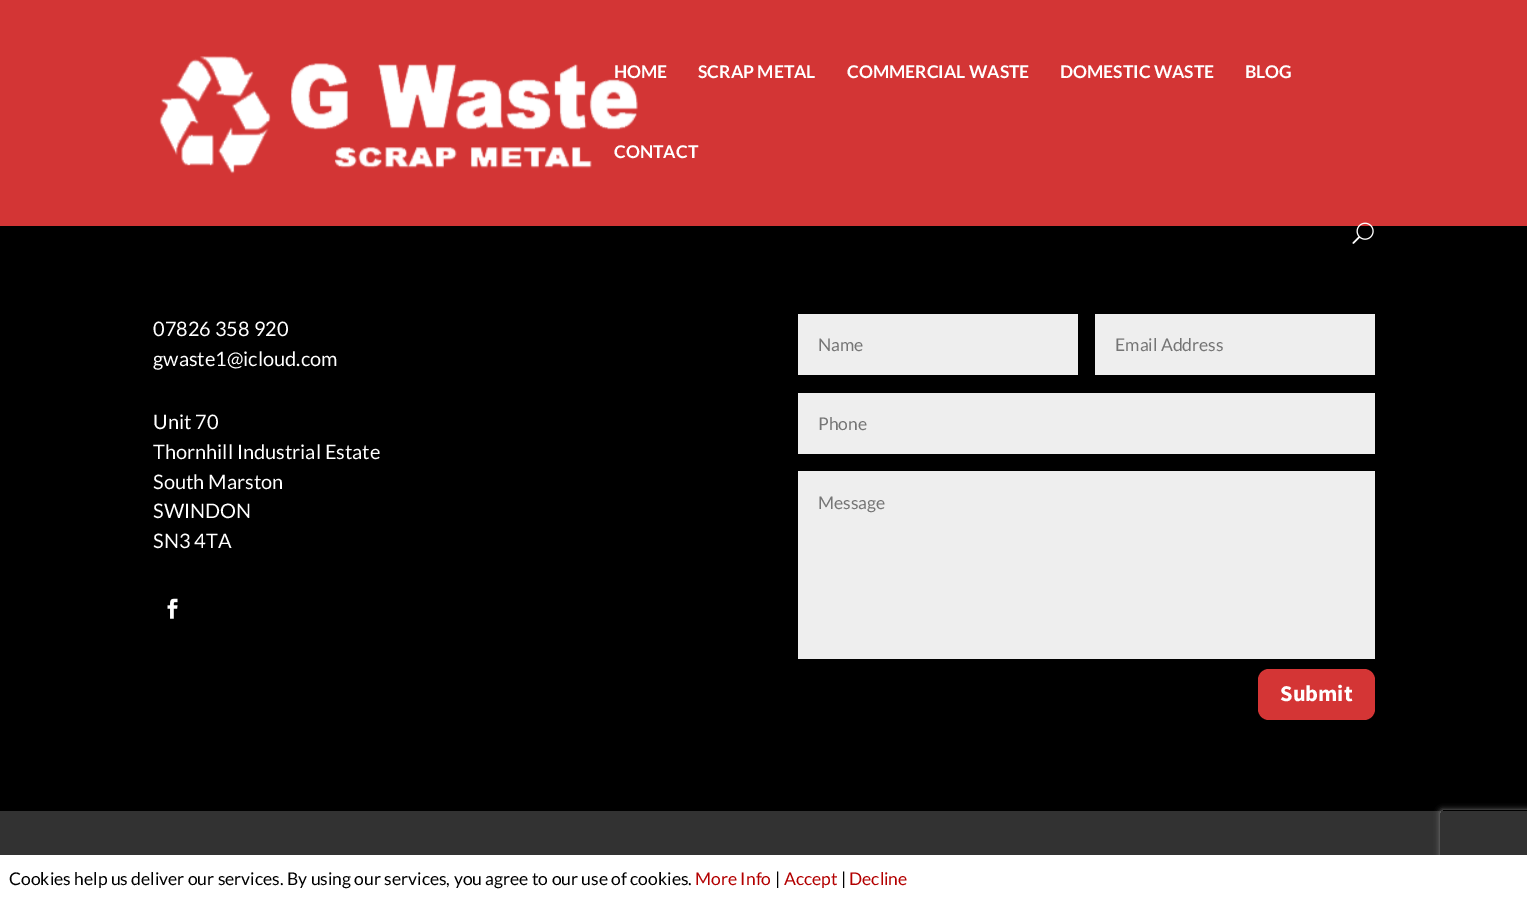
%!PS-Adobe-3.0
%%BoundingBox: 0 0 1527 902
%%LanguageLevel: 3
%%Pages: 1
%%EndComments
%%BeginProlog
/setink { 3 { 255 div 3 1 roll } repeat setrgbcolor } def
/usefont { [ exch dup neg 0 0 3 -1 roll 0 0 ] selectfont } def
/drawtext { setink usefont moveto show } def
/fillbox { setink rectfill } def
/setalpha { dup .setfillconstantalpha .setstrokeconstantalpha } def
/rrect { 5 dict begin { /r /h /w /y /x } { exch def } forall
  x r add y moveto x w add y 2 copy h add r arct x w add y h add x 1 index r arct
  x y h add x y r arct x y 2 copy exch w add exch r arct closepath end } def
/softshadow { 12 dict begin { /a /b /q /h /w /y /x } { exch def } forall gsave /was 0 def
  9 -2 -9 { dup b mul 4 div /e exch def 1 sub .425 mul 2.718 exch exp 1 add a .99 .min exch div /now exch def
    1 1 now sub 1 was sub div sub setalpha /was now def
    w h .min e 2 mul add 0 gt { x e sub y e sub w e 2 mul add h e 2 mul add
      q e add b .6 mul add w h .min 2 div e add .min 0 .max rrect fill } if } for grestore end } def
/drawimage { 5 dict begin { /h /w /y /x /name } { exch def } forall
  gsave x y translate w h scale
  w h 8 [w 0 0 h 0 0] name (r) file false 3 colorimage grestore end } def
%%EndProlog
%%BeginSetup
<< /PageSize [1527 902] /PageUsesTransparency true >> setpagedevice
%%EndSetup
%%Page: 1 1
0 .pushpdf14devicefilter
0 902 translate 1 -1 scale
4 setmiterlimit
0 0 1527 902 0 0 0 fillbox
0 0 1527 226 211 53 53 fillbox
(assets/img1.rgb) 159 56 479 118 drawimage
(HOME) 614 78 /Lato-Bold 17.5 255 255 255 drawtext
(SCRAP METAL) 698 78 /Lato-Bold 17.5 255 255 255 drawtext
(COMMERCIAL WASTE) 847 78 /Lato-Bold 17.5 255 255 255 drawtext
(DOMESTIC WASTE) 1060 78 /Lato-Bold 17.5 255 255 255 drawtext
(BLOG) 1245 78 /Lato-Bold 17.5 255 255 255 drawtext
(CONTACT) 614 158 /Lato-Bold 17.5 255 255 255 drawtext
(assets/img2.rgb) 1352 222 22 22 drawimage
(07826 358 920) 153 336 /Lato-Regular 20 255 255 255 drawtext
(gwaste1@icloud.com) 153 366 /Lato-Regular 20 255 255 255 drawtext
(Unit 70) 153 429 /Lato-Regular 20 255 255 255 drawtext
(Thornhill Industrial Estate) 153 459 /Lato-Regular 20 255 255 255 drawtext
(South Marston) 153 489 /Lato-Regular 20 255 255 255 drawtext
(SWINDON) 153 518 /Lato-Regular 20 255 255 255 drawtext
(SN3 4TA) 153 548 /Lato-Regular 20 255 255 255 drawtext
(assets/img3.rgb) 167 598 11 21 drawimage
798 314 280 61 238 238 238 fillbox
(Name) 818 351 /Lato-Regular 17.5 117 117 117 drawtext
1095 314 280 61 238 238 238 fillbox
(Email Address) 1115 351 /Lato-Regular 17.5 117 117 117 drawtext
798 393 577 61 238 238 238 fillbox
(Phone) 818 430 /Lato-Regular 17.5 117 117 117 drawtext
798 471 577 188 238 238 238 fillbox
(Message) 818 509 /Lato-Regular 17.5 117 117 117 drawtext
212 53 53 setink
1258 669 117 51 11 rrect fill
(Submit) 1280 701 /SourceSansPro-Bold 22.5 255 255 255 drawtext
0 811 1527 44 50 50 50 fillbox
gsave
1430 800 moveto 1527 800 lineto 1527 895 lineto 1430 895 lineto closepath 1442.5 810 moveto 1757.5 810 lineto 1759 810 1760 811 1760 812.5 curveto 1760 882.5 lineto 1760 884 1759 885 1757.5 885 curveto 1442.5 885 lineto 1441 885 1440 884 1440 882.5 curveto 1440 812.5 lineto 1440 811 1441 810 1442.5 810 curveto closepath eoclip newpath
128 128 128 setink
1440 810 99 75 2.5 3 1 softshadow
grestore
0 855 1527 47 255 255 255 fillbox
(Cookies help us deliver our services. By using our services, you agree to our use of cookies.) 9 885 /Lato-Regular 17.5 0 0 0 drawtext
(More Info) 695 885 /Lato-Regular 17.5 179 0 0 drawtext
(|) 775 885 /Lato-Regular 17.5 0 0 0 drawtext
(Accept) 784 885 /Lato-Regular 17.5 179 0 0 drawtext
(|) 841 885 /Lato-Regular 17.5 0 0 0 drawtext
(Decline) 849 885 /Lato-Regular 17.5 179 0 0 drawtext
.poppdf14devicefilter showpage
%%EOF
